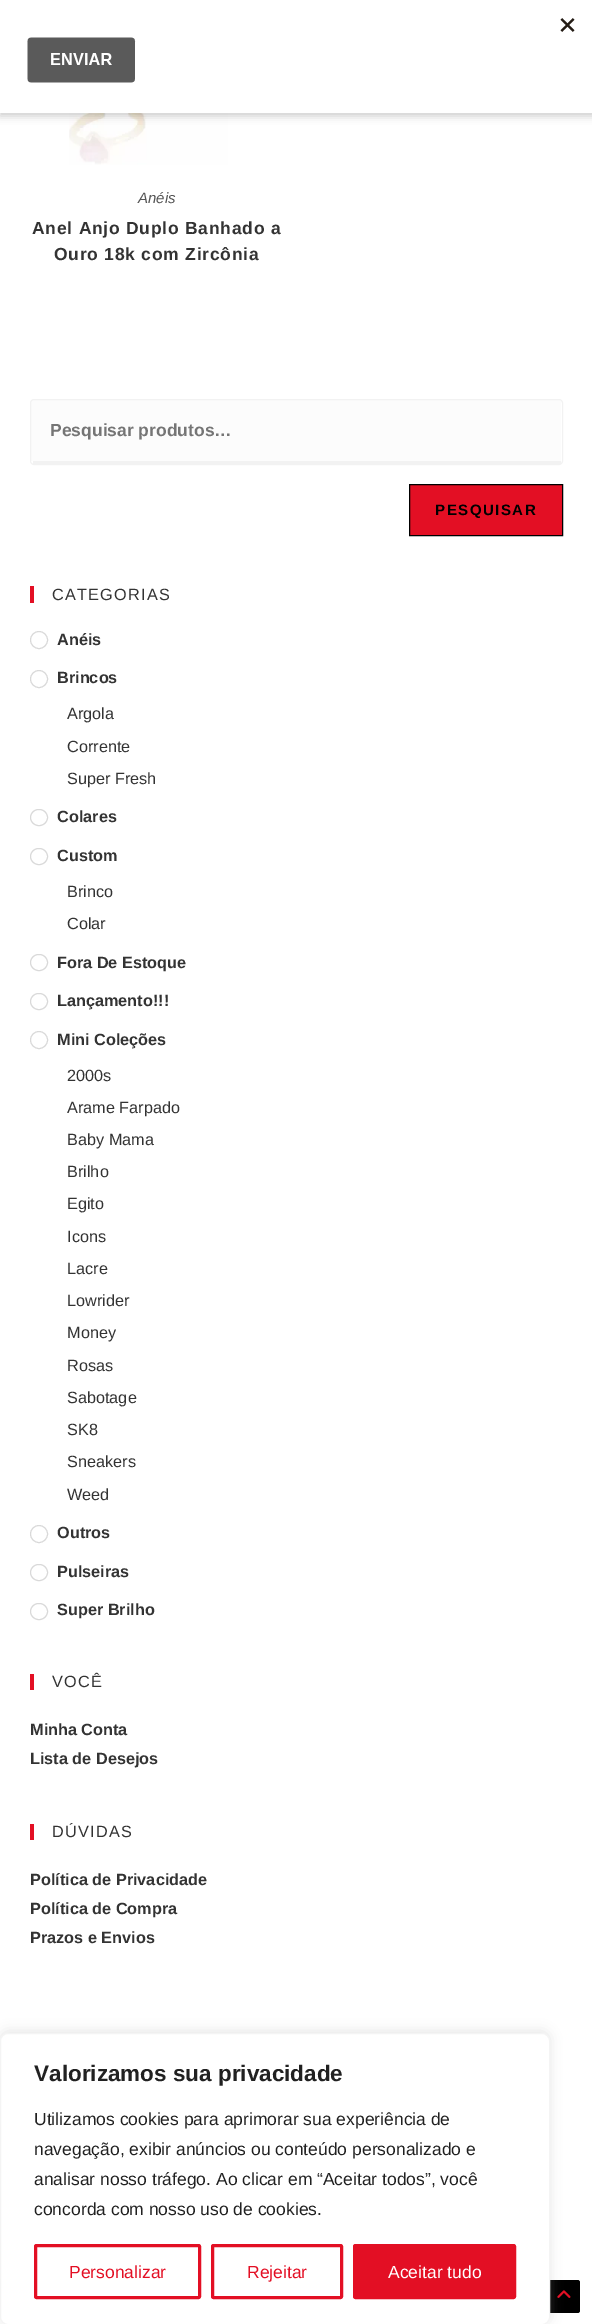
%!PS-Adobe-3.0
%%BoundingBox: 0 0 592 2324
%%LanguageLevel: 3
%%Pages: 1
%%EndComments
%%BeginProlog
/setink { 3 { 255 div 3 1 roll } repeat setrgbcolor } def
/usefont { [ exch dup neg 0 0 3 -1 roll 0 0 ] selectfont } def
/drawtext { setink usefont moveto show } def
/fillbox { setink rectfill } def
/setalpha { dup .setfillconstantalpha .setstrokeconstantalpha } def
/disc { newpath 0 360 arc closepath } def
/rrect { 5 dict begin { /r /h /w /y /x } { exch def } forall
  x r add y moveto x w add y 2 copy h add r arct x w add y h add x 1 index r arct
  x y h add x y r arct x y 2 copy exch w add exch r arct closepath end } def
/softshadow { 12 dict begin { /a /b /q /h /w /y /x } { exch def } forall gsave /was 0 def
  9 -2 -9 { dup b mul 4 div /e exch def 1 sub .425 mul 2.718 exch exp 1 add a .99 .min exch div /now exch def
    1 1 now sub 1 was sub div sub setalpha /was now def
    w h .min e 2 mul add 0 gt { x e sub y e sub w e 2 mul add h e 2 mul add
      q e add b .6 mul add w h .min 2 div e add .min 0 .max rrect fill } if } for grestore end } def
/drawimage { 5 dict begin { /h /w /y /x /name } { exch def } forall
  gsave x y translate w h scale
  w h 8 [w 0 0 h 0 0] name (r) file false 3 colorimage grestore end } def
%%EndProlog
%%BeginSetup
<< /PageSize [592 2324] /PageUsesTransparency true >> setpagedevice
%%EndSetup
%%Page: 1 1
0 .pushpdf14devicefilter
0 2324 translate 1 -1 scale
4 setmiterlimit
0 0 592 2324 255 255 255 fillbox
(assets/img2.rgb) 69 113 159 52 drawimage
0 0 0 setink
0 4 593 112 0 4 0.2 softshadow
0 0 592 113 255 255 255 fillbox
(assets/img1.rgb) 27 18 548 65 drawimage
(Anéis) 138 203 /LiberationSans-Italic 15 84 84 84 drawtext
/LiberationSans-Bold 17.5 usefont
51 51 51 setink
32 234 moveto 0.75 0 (Anel Anjo Duplo Banhado a) ashow
54 260 moveto 0.75 0 (Ouro 18k com Zircônia) ashow
252 252 252 setink
34 400 moveto 559 400 lineto 560 400 561 401 561 402 curveto 561 461 lineto 31 461 lineto 31 402 lineto 31 401 32 400 34 400 curveto closepath fill
242 242 242 setink
30.5 399.5 532 65 3.5 rrect stroke
33 461 528 3 242 242 242 fillbox
(Pesquisar produtos…) 50 436 /LiberationSans-Bold 17.5 117 117 117 drawtext
227 15 36 setink
409.5 484.5 moveto 562.5 484.5 lineto 562.5 535.5 lineto 409.5 535.5 lineto closepath gsave fill grestore
0 0 0 setink
stroke
/LiberationSans-Bold 15 usefont
435 515 moveto 1.5 0 (PESQUISAR) ashow
30 586 4 17 227 15 36 fillbox
/LiberationSans-Regular 16.25 usefont
51 51 51 setink
52 600 moveto 1.25 0 (CATEGORIAS) ashow
217 217 217 setink
39 640 8.5 disc stroke
(Anéis) 57 645 /LiberationSans-Bold 16.25 51 51 51 drawtext
217 217 217 setink
39 679 8.5 disc stroke
(Brincos) 57 683 /LiberationSans-Bold 16.25 51 51 51 drawtext
(Argola) 67 719 /LiberationSans-Regular 16.25 51 51 51 drawtext
(Corrente) 67 752 /LiberationSans-Regular 16.25 51 51 51 drawtext
(Super Fresh) 67 784 /LiberationSans-Regular 16.25 51 51 51 drawtext
217 217 217 setink
30.5 809.5 17 16 8 rrect stroke
(Colares) 57 822 /LiberationSans-Bold 16.25 51 51 51 drawtext
217 217 217 setink
30.5 848.5 17 16 8 rrect stroke
(Custom) 57 861 /LiberationSans-Bold 16.25 51 51 51 drawtext
(Brinco) 67 897 /LiberationSans-Regular 16.25 51 51 51 drawtext
(Colar) 67 929 /LiberationSans-Regular 16.25 51 51 51 drawtext
217 217 217 setink
30.5 954.5 17 16 8 rrect stroke
(Fora De Estoque) 57 968 /LiberationSans-Bold 16.25 51 51 51 drawtext
217 217 217 setink
30.5 993.5 17 16 8 rrect stroke
(Lançamento!!!) 57 1006 /LiberationSans-Bold 16.25 51 51 51 drawtext
217 217 217 setink
39 1040 8.5 disc stroke
(Mini Coleções) 57 1045 /LiberationSans-Bold 16.25 51 51 51 drawtext
(2000s) 67 1081 /LiberationSans-Regular 16.25 51 51 51 drawtext
(Arame Farpado) 67 1113 /LiberationSans-Regular 16.25 51 51 51 drawtext
(Baby Mama) 67 1145 /LiberationSans-Regular 16.25 51 51 51 drawtext
(Brilho) 67 1177 /LiberationSans-Regular 16.25 51 51 51 drawtext
(Egito) 67 1209 /LiberationSans-Regular 16.25 51 51 51 drawtext
(Icons) 67 1242 /LiberationSans-Regular 16.25 51 51 51 drawtext
(Lacre) 67 1274 /LiberationSans-Regular 16.25 51 51 51 drawtext
(Lowrider) 67 1306 /LiberationSans-Regular 16.25 51 51 51 drawtext
(Money) 67 1338 /LiberationSans-Regular 16.25 51 51 51 drawtext
(Rosas) 67 1371 /LiberationSans-Regular 16.25 51 51 51 drawtext
(Sabotage) 67 1403 /LiberationSans-Regular 16.25 51 51 51 drawtext
(SK8) 67 1435 /LiberationSans-Regular 16.25 51 51 51 drawtext
(Sneakers) 67 1467 /LiberationSans-Regular 16.25 51 51 51 drawtext
(Weed) 67 1500 /LiberationSans-Regular 16.25 51 51 51 drawtext
217 217 217 setink
39 1534 8.5 disc stroke
(Outros) 57 1538 /LiberationSans-Bold 16.25 51 51 51 drawtext
217 217 217 setink
30.5 1564.5 17 16 8 rrect stroke
(Pulseiras) 57 1577 /LiberationSans-Bold 16.25 51 51 51 drawtext
217 217 217 setink
30.5 1603.5 17 16 8 rrect stroke
(Super Brilho) 57 1615 /LiberationSans-Bold 16.25 51 51 51 drawtext
30 1674 4 16 227 15 36 fillbox
/LiberationSans-Regular 16.25 usefont
51 51 51 setink
52 1687 moveto 1.25 0 (VOCÊ) ashow
(Minha Conta) 30 1735 /LiberationSans-Bold 16.25 51 51 51 drawtext
(Lista de Desejos) 30 1764 /LiberationSans-Bold 16.25 51 51 51 drawtext
30 1824 4 16 227 15 36 fillbox
/LiberationSans-Regular 16.25 usefont
51 51 51 setink
52 1837 moveto 1.25 0 (DÚVIDAS) ashow
(Política de Privacidade) 30 1885 /LiberationSans-Bold 16.25 51 51 51 drawtext
(Política de Compra) 30 1914 /LiberationSans-Bold 16.25 51 51 51 drawtext
(Prazos e Envios) 30 1943 /LiberationSans-Bold 16.25 51 51 51 drawtext
0 0 0 setink
548 2280 32 33 2.5 rrect fill
(assets/img3.rgb) 557 2290 14 8 drawimage
172 171 171 setink
0 2031 550 293 8 6 0.3 softshadow
255 255 255 setink
0.5 2033.5 549 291 7.5 rrect gsave fill grestore
244 244 244 setink
stroke
(Valorizamos sua privacidade) 34 2081 /LiberationSans-Bold 22.5 33 33 33 drawtext
(Utilizamos cookies para aprimorar sua experiência de) 34 2125 /LiberationSans-Regular 17.5 33 33 33 drawtext
(navegação, exibir anúncios ou conteúdo personalizado e) 34 2155 /LiberationSans-Regular 17.5 33 33 33 drawtext
(analisar nosso tráfego. Ao clicar em “Aceitar todos”, você) 34 2185 /LiberationSans-Regular 17.5 33 33 33 drawtext
(concorda com nosso uso de cookies.) 34 2215 /LiberationSans-Regular 17.5 33 33 33 drawtext
227 15 36 setink
3 setlinewidth
35.5 2245.5 164 52 1 rrect stroke
(Personalizar) 69 2278 /LiberationSans-Regular 17.5 227 15 36 drawtext
212.5 2245.5 129 52 1 rrect stroke
(Rejeitar) 247 2278 /LiberationSans-Regular 17.5 227 15 36 drawtext
354.5 2245.5 160 52 1 rrect gsave fill grestore
stroke
(Aceitar tudo) 388 2278 /LiberationSans-Regular 17.5 255 255 255 drawtext
.poppdf14devicefilter showpage
%%EOF
